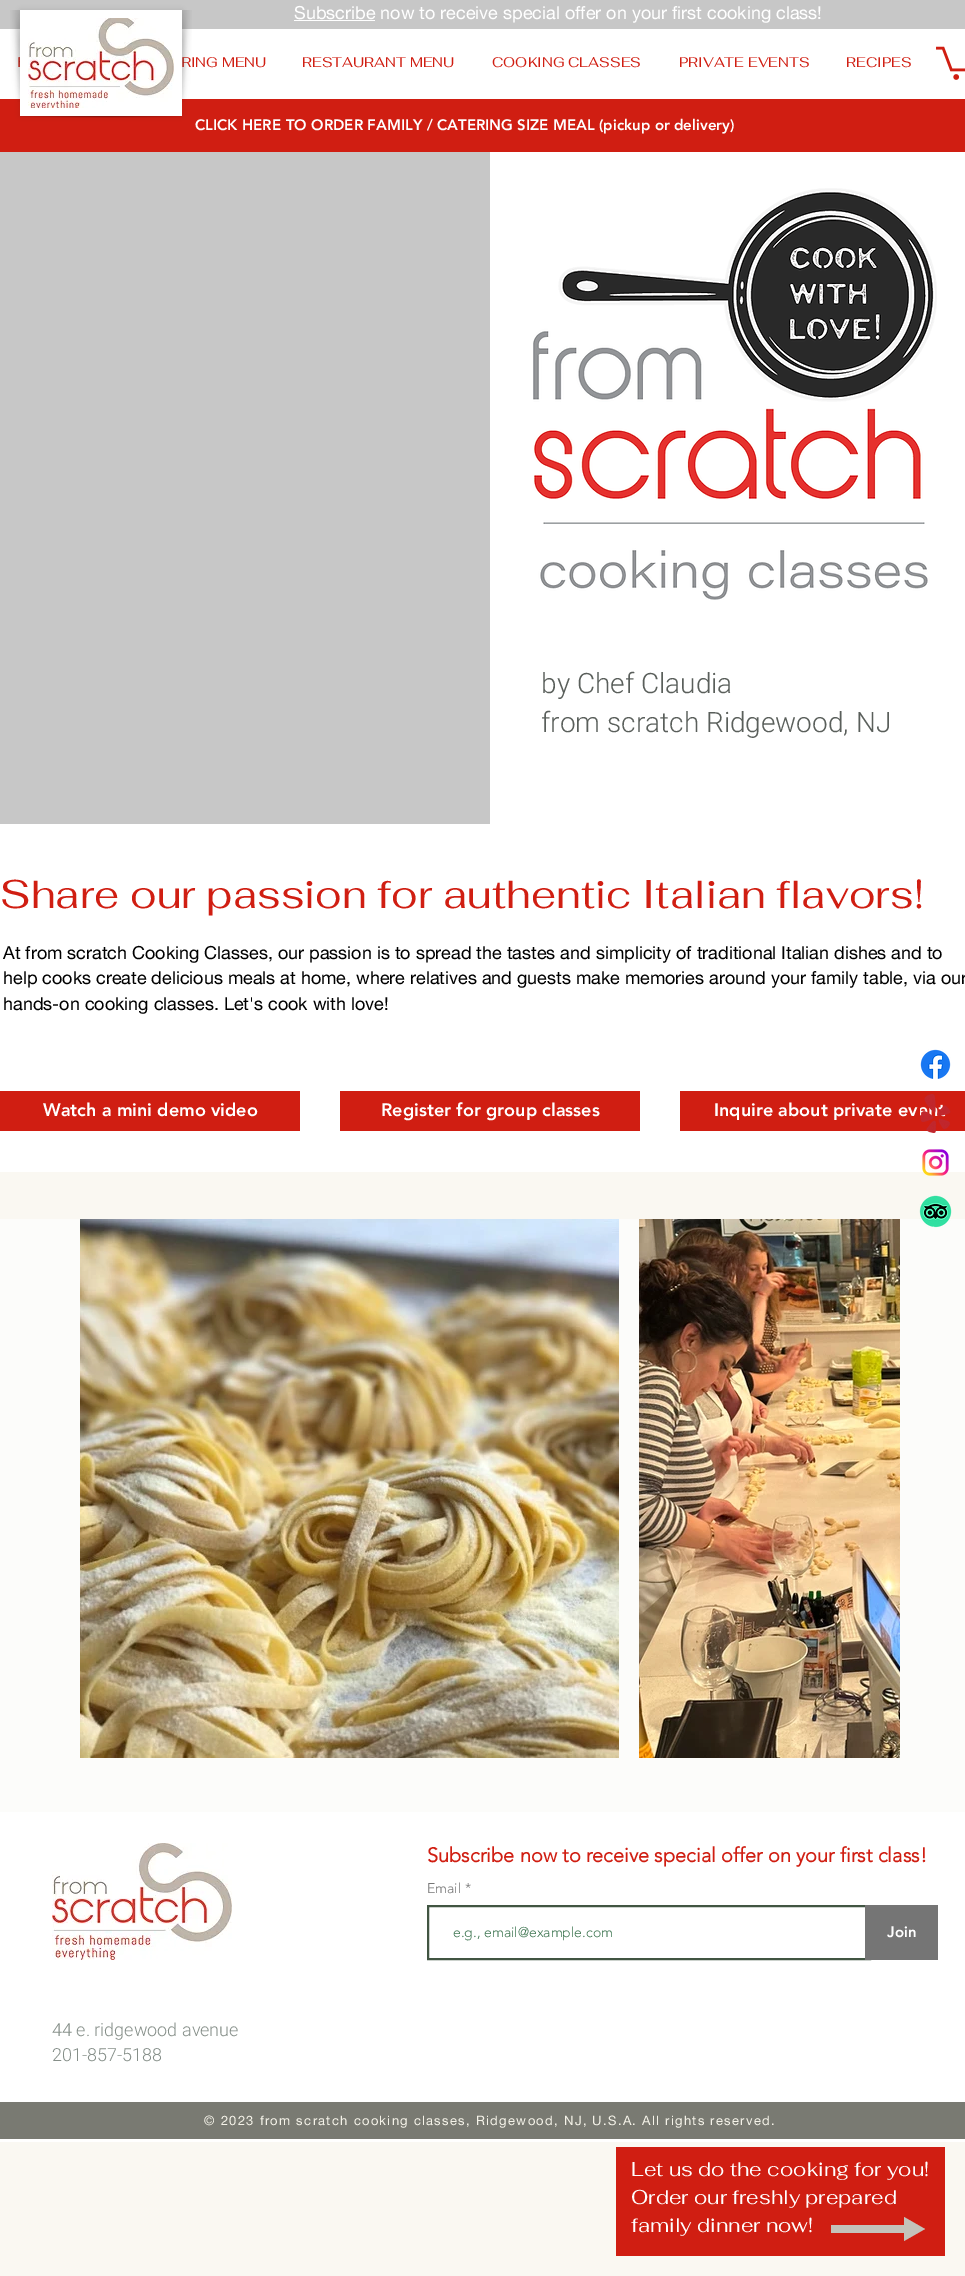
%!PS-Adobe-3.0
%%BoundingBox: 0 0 965 2276
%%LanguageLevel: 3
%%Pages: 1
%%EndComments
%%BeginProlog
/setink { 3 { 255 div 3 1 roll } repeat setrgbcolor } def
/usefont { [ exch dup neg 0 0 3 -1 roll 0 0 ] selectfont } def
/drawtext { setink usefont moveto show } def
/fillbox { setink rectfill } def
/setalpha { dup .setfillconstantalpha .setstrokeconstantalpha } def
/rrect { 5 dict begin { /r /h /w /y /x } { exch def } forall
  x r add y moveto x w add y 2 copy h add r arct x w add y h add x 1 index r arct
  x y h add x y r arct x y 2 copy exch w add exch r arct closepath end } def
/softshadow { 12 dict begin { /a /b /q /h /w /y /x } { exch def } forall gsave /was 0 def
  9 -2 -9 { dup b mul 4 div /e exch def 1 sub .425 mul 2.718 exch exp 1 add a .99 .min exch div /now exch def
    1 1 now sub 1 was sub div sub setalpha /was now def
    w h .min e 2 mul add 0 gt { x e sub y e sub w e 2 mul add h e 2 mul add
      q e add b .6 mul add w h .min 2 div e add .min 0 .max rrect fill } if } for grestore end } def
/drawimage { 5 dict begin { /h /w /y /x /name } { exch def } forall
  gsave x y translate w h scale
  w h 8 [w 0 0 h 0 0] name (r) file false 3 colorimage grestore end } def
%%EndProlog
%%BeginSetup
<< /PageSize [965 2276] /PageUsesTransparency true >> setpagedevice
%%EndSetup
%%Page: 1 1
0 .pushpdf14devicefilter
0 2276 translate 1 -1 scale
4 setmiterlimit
0 0 965 2276 250 248 242 fillbox
0 0 965 29 199 199 199 fillbox
0 99 965 53 208 30 18 fillbox
0 29 965 70 255 255 255 fillbox
0 0 0 setink
20 10 162 106 0 2.5 0.1 softshadow
20 10 162 106 255 255 255 fillbox
(assets/img1.rgb) 28 18 146 90 drawimage
(assets/img2.rgb) 20 116 162 2 drawimage
(assets/img3.rgb) 10 10 10 92 drawimage
(RING MENU) 181 67 /Fahkwang-Regular 14 208 30 18 drawtext
(assets/img4.rgb) 182 10 10 92 drawimage
294 20 81 1 255 255 255 fillbox
(Subscribe now to receive special offer on your first cooking class!) 294 19 /helveticaneue-Regular 18 255 255 255 drawtext
(RESTAURANT MENU) 302 67 /Fahkwang-Regular 14 208 30 18 drawtext
(COOKING CLASSES) 492 67 /Fahkwang-Regular 14 208 30 18 drawtext
(PRIVATE EVENTS) 679 67 /Fahkwang-Regular 14 208 30 18 drawtext
(RECIPES) 846 67 /Fahkwang-Regular 14 208 30 18 drawtext
(assets/img5.rgb) 936 46 29 34 drawimage
(CLICK HERE TO ORDER FAMILY / CATERING SIZE MEAL \(pickup or delivery\)) 195 130 /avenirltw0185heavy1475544-Black 15 255 255 255 drawtext
0 152 490 672 199 199 199 fillbox
490 152 475 672 255 255 255 fillbox
(assets/img6.rgb) 533 188 404 412 drawimage
(by Chef Claudia) 541 693 /Heebo-Light 28 90 95 91 drawtext
(from scratch Ridgewood, NJ) 541 732 /Heebo-Light 28 90 95 91 drawtext
0 824 965 348 255 255 255 fillbox
(Share our passion for authentic Italian flavors!) 0 908 /Fahkwang-Regular 40 208 30 18 drawtext
(At from scratch Cooking Classes, our passion is to spread the tastes and simplicity of traditional Italian dishes and to) 3 959 /helveticaneue-Regular 18 0 0 0 drawtext
(help cooks create delicious meals at home, where relatives and guests make memories around your family table, via our) 3 984 /helveticaneue-Regular 18 0 0 0 drawtext
(hands-on cooking classes. Let's cook with love!) 3 1010 /helveticaneue-Regular 18 0 0 0 drawtext
0 1091 300 40 208 30 18 fillbox
(Watch a mini demo video) 43 1116 /avenirltw0185heavy1475544-Black 18 255 255 255 drawtext
340 1091 300 40 208 30 18 fillbox
(Register for group classes) 381 1116 /avenirltw0185heavy1475544-Black 18 255 255 255 drawtext
680 1091 285 40 208 30 18 fillbox
(Inquire about private ev) 714 1116 /avenirltw0185heavy1475544-Black 18 255 255 255 drawtext
0 1219 965 593 252 252 250 fillbox
(assets/img7.rgb) 80 1219 539 539 drawimage
(assets/img8.rgb) 639 1219 261 539 drawimage
616 2147 329 109 208 30 18 fillbox
(Let us do the cooking for you!) 631 2176 /Fahkwang-Regular 20 255 255 255 drawtext
(Order our freshly prepared) 631 2204 /Fahkwang-Regular 20 255 255 255 drawtext
(family dinner now!) 631 2232 /Fahkwang-Regular 20 255 255 255 drawtext
196 194 186 setink
831 2233 moveto 904 2233 lineto 904 2241 lineto 925 2229 lineto 904 2217 lineto 904 2225 lineto 831 2225 lineto closepath fill
(assets/img9.rgb) 920 1049 31 30 drawimage
(assets/img10.rgb) 920 1094 31 39 drawimage
(assets/img11.rgb) 922 1149 27 27 drawimage
(assets/img12.rgb) 919 1195 33 33 drawimage
0 1812 965 330 255 255 255 fillbox
(assets/img13.rgb) 52 1843 180 117 drawimage
(Subscribe now to receive special offer on your first class!) 427 1862 /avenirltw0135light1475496-Bold 20 208 30 18 drawtext
(Email *) 427 1893 /avenirltw0135light1475496-Light 14 117 117 117 drawtext
65 85 66 setink
2 setlinewidth
428 1906 442 53 rectstroke
(e.g., email@example.com) 453 1937 /avenirltw0135light1475496-Light 14 63 118 82 drawtext
865 1905 73 55 117 117 117 fillbox
(Join) 887 1937 /avenirltw0185heavy1475544-Black 15 255 255 255 drawtext
(44 e. ridgewood avenue) 52 2036 /Heebo-Light 18 134 143 137 drawtext
(201-857-5188) 52 2061 /Heebo-Light 18 134 143 137 drawtext
0 2102 965 37 121 122 114 fillbox
/helveticaneue-Regular 13 usefont
245 243 233 setink
204 2125 moveto 1.3 0 (© 2023 from scratch cooking classes, Ridgewood, NJ, U.S.A. All rights reserved.) ashow
.poppdf14devicefilter showpage
%%EOF
